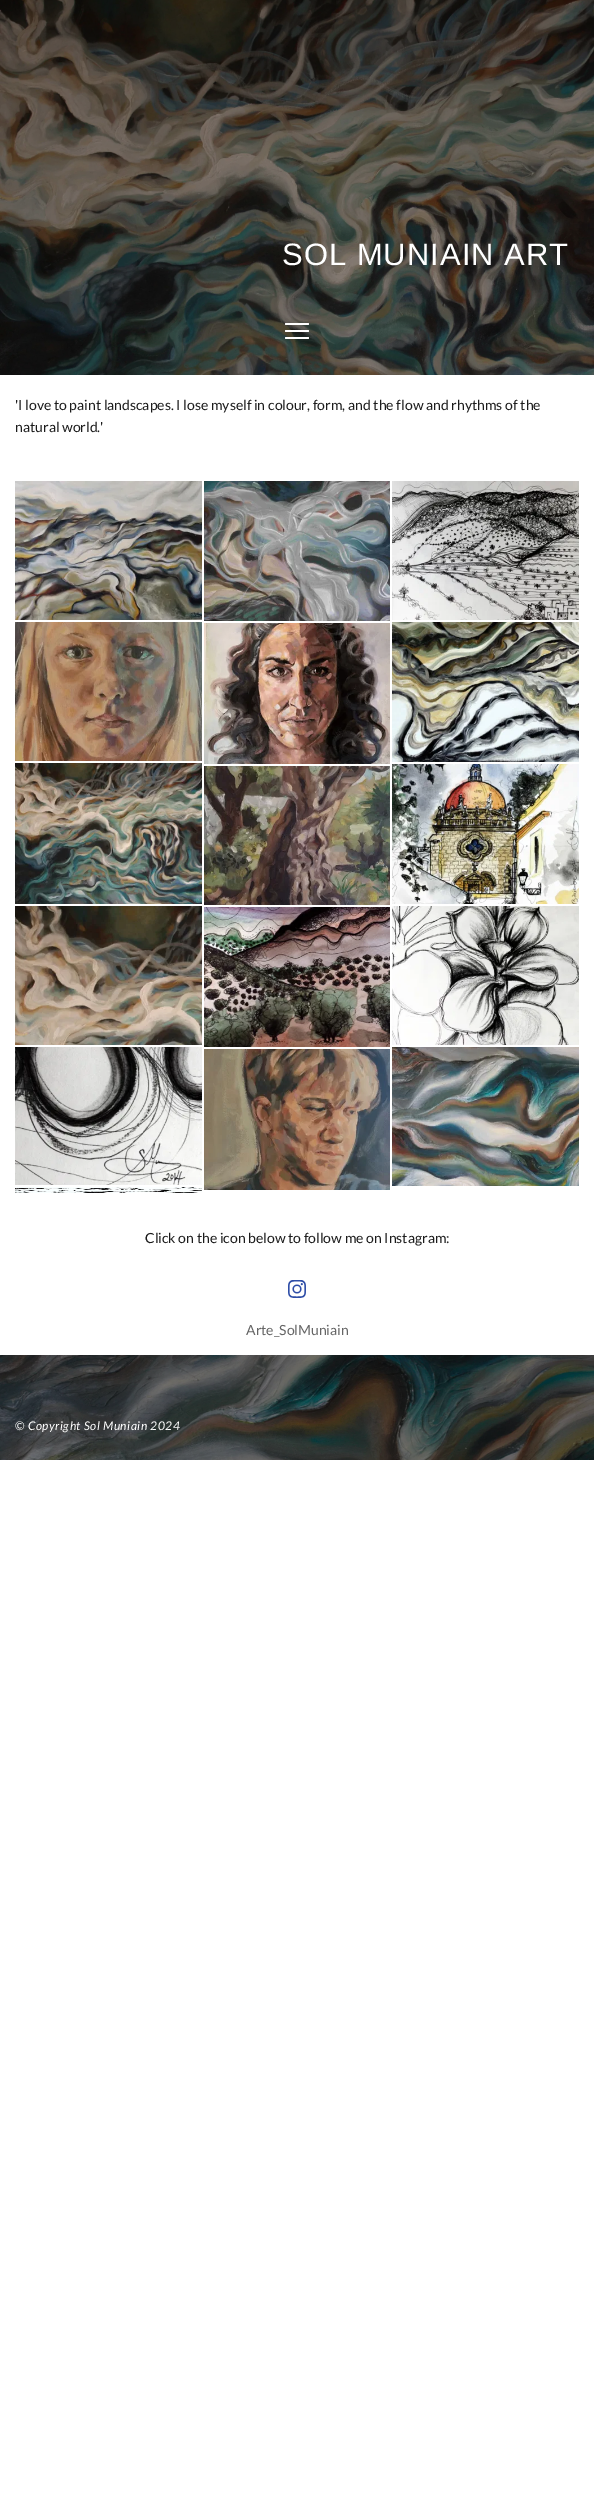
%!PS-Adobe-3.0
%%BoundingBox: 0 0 594 2507
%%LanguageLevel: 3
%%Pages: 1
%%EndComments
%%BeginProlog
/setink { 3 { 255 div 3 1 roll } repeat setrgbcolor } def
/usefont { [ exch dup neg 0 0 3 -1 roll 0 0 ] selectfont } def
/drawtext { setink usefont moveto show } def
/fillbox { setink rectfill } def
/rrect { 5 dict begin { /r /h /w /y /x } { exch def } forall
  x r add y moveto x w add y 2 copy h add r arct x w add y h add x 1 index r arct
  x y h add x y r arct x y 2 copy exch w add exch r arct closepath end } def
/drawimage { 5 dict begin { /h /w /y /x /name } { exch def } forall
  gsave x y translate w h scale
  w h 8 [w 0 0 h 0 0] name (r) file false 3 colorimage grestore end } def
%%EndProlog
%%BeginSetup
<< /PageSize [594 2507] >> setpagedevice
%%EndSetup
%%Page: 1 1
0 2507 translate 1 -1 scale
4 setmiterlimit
0 0 594 2507 255 255 255 fillbox
(assets/img1.rgb) 0 0 594 375 drawimage
/LiberationSans-Regular 31 usefont
282 265 moveto 1 0 (SOL MUNIAIN ART) ashow
285 323 24 2 1 rrect fill
285 330 24 2 1 rrect fill
285 337 24 2 1 rrect fill
('I love to paint landscapes. I lose myself in colour, form, and the flow and rhythms of the) 15 410 /Lato-Regular 14 28 28 28 drawtext
(natural world.') 15 432 /Lato-Regular 14 28 28 28 drawtext
(assets/img2.rgb) 15 481 187 139 drawimage
(assets/img3.rgb) 204 481 186 140 drawimage
(assets/img4.rgb) 392 481 187 139 drawimage
(assets/img5.rgb) 15 622 187 139 drawimage
(assets/img6.rgb) 204 623 186 141 drawimage
(assets/img7.rgb) 392 622 187 140 drawimage
(assets/img8.rgb) 15 763 187 141 drawimage
(assets/img9.rgb) 204 766 186 139 drawimage
(assets/img10.rgb) 392 764 187 140 drawimage
(assets/img11.rgb) 15 906 187 139 drawimage
(assets/img12.rgb) 204 907 186 140 drawimage
(assets/img13.rgb) 392 906 187 139 drawimage
(assets/img14.rgb) 15 1047 187 138 drawimage
(assets/img15.rgb) 204 1049 186 141 drawimage
(assets/img16.rgb) 392 1047 187 139 drawimage
(assets/img17.rgb) 15 1187 187 6 drawimage
(Click on the icon below to follow me on Instagram:) 145 1243 /Lato-Regular 14 28 28 28 drawtext
(assets/img18.rgb) 288 1280 18 18 drawimage
(Arte_SolMuniain) 246 1335 /Lato-Regular 14 102 102 102 drawtext
(assets/img19.rgb) 0 1355 594 105 drawimage
/Lato-Regular 12 usefont
255 255 255 setink
15 1430 moveto 0.5 0 (©) ashow
/Lato-Italic 12 usefont
28 1430 moveto 0.5 0 (Copyright Sol Muniain 2024) ashow
showpage
%%EOF
